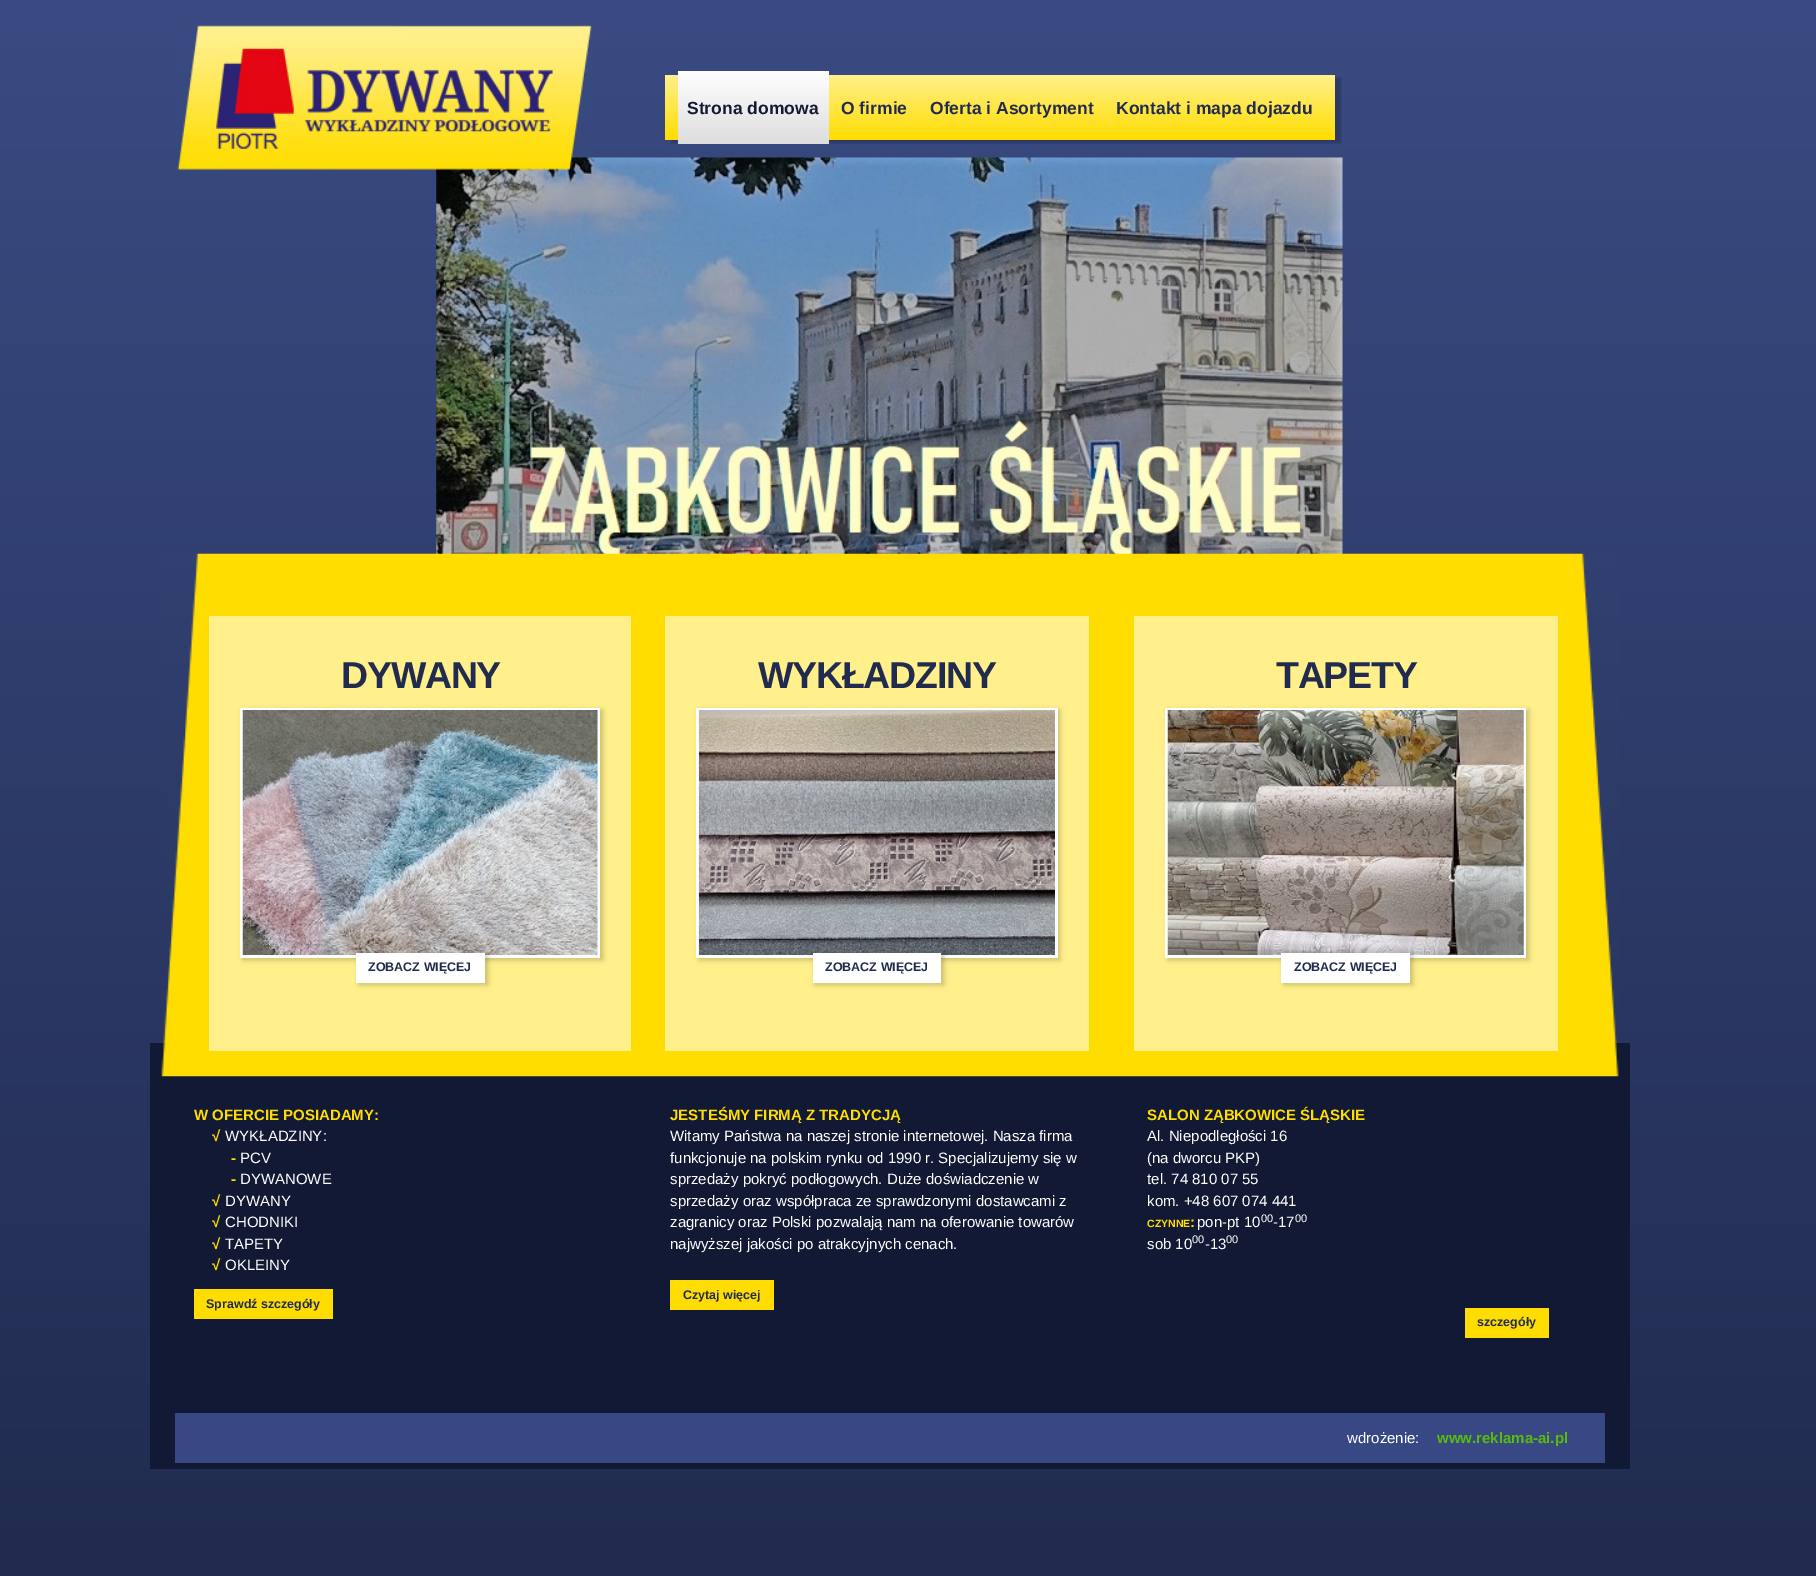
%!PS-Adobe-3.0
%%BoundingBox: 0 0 1816 1576
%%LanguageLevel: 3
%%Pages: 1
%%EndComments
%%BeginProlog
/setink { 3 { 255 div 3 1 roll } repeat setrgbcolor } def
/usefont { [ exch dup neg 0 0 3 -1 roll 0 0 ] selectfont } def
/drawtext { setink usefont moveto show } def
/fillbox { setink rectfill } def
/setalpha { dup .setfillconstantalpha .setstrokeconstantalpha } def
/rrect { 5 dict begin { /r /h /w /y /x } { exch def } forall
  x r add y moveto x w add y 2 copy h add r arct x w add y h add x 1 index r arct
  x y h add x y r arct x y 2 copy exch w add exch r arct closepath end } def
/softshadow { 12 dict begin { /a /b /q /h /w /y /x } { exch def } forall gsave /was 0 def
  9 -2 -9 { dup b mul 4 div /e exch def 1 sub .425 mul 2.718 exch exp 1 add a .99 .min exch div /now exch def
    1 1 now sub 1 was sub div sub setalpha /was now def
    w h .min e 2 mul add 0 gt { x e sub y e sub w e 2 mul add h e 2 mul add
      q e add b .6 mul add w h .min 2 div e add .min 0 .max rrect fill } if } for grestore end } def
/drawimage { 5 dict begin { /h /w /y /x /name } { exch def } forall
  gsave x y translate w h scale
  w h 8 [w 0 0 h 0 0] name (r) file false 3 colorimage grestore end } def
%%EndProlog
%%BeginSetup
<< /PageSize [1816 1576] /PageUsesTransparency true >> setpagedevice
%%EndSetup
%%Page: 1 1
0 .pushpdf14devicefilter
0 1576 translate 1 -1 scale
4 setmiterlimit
0 0 1816 1576 255 255 255 fillbox
gsave 0 0 moveto 1816 0 lineto 1816 1576 lineto 0 1576 lineto closepath clip newpath
<< /ShadingType 2 /ColorSpace /DeviceRGB /Coords [908 0 908 1576] /Extend [true true] /Function << /FunctionType 2 /Domain [0 1] /C0 [0.224 0.294 0.51] /C1 [0.129 0.169 0.31] /N 1 >> >> shfill grestore
(assets/img2.rgb) 436 157 907 397 drawimage
(assets/img1.rgb) 177 25 415 145 drawimage
0 0 0 setink
671 78 670 65 0 1 0.2 softshadow
gsave 665 75 moveto 1335 75 lineto 1335 140 lineto 665 140 lineto closepath clip newpath
<< /ShadingType 2 /ColorSpace /DeviceRGB /Coords [1000 75 1000 140] /Extend [true true] /Function << /FunctionType 2 /Domain [0 1] /C0 [1 0.941 0.545] /C1 [1 0.867 0] /N 1 >> >> shfill grestore
gsave 678 71 moveto 829 71 lineto 829 144 lineto 678 144 lineto closepath clip newpath
<< /ShadingType 2 /ColorSpace /DeviceRGB /Coords [753 71 753 144] /Extend [true true] /Function << /FunctionType 2 /Domain [0 1] /C0 [1 1 1] /C1 [0.867 0.867 0.867] /N 1 >> >> shfill grestore
(Strona domowa) 687 114 /LiberationSans-Bold 17.5 18 25 53 drawtext
(O firmie) 841 114 /LiberationSans-Bold 17.5 33 43 79 drawtext
(Oferta i Asortyment) 930 114 /LiberationSans-Bold 17.5 33 43 79 drawtext
(Kontakt i mapa dojazdu) 1116 114 /LiberationSans-Bold 17.5 33 43 79 drawtext
150 1043 1480 426 18 25 53 fillbox
(assets/img3.rgb) 161 553 1458 524 drawimage
209 616 422 435 255 240 139 fillbox
/LiberationSans-Bold 37.5 usefont
33 43 79 setink
341 688 moveto -1.25 0 (DYWANY) ashow
0 0 0 setink
243 710 360 250 0 2.5 0.2 softshadow
240 708 360 250 255 255 255 fillbox
(assets/img4.rgb) 242 710 356 245 drawimage
0 0 0 setink
359 955 129 30 0 2.5 0.2 softshadow
356 953 129 30 255 255 255 fillbox
(ZOBACZ WIĘCEJ) 368 971 /LiberationSans-Bold 12.5 33 43 79 drawtext
665 616 424 435 255 240 139 fillbox
/LiberationSans-Bold 37.5 usefont
33 43 79 setink
758 688 moveto -1.25 0 (WYKŁADZINY) ashow
0 0 0 setink
699 710 361 250 0 2.5 0.2 softshadow
696 708 362 250 255 255 255 fillbox
(assets/img5.rgb) 698 710 357 245 drawimage
0 0 0 setink
815 955 129 30 0 2.5 0.2 softshadow
813 953 128 30 255 255 255 fillbox
(ZOBACZ WIĘCEJ) 825 971 /LiberationSans-Bold 12.5 33 43 79 drawtext
1134 616 424 435 255 240 139 fillbox
/LiberationSans-Bold 37.5 usefont
33 43 79 setink
1276 688 moveto -1.25 0 (TAPETY) ashow
0 0 0 setink
1168 710 361 250 0 2.5 0.2 softshadow
1165 708 361 250 255 255 255 fillbox
(assets/img6.rgb) 1167 710 357 245 drawimage
0 0 0 setink
1284 955 129 30 0 2.5 0.2 softshadow
1281 953 129 30 255 255 255 fillbox
(ZOBACZ WIĘCEJ) 1294 971 /LiberationSans-Bold 12.5 33 43 79 drawtext
(W OFERCIE POSIADAMY:) 194 1120 /LiberationSans-Bold 15 255 221 0 drawtext
(√) 212 1141 /LiberationSans-Bold 15 255 221 0 drawtext
(WYKŁADZINY:) 225 1141 /LiberationSans-Regular 15 255 255 255 drawtext
(-) 231 1163 /LiberationSans-Bold 15 255 221 0 drawtext
(PCV) 240 1163 /LiberationSans-Regular 15 255 255 255 drawtext
(-) 231 1184 /LiberationSans-Bold 15 255 221 0 drawtext
(DYWANOWE) 240 1184 /LiberationSans-Regular 15 255 255 255 drawtext
(√) 212 1206 /LiberationSans-Bold 15 255 221 0 drawtext
(DYWANY) 225 1206 /LiberationSans-Regular 15 255 255 255 drawtext
(√) 212 1227 /LiberationSans-Bold 15 255 221 0 drawtext
(CHODNIKI) 225 1227 /LiberationSans-Regular 15 255 255 255 drawtext
(√) 212 1249 /LiberationSans-Bold 15 255 221 0 drawtext
(TAPETY) 225 1249 /LiberationSans-Regular 15 255 255 255 drawtext
(√) 212 1270 /LiberationSans-Bold 15 255 221 0 drawtext
(OKLEINY) 225 1270 /LiberationSans-Regular 15 255 255 255 drawtext
194 1289 139 30 255 221 0 fillbox
(Sprawdź szczegóły) 206 1308 /LiberationSans-Bold 12.5 33 43 79 drawtext
(JESTEŚMY FIRMĄ Z TRADYCJĄ) 670 1120 /LiberationSans-Bold 15 255 221 0 drawtext
(Witamy Państwa na naszej stronie internetowej. Nasza firma) 670 1141 /LiberationSans-Regular 15 255 255 255 drawtext
(funkcjonuje na polskim rynku od 1990 r. Specjalizujemy się w) 670 1163 /LiberationSans-Regular 15 255 255 255 drawtext
(sprzedaży pokryć podłogowych. Duże doświadczenie w) 670 1184 /LiberationSans-Regular 15 255 255 255 drawtext
(sprzedaży oraz współpraca ze sprawdzonymi dostawcami z) 670 1206 /LiberationSans-Regular 15 255 255 255 drawtext
(zagranicy oraz Polski pozwalają nam na oferowanie towarów) 670 1227 /LiberationSans-Regular 15 255 255 255 drawtext
(najwyższej jakości po atrakcyjnych cenach.) 670 1249 /LiberationSans-Regular 15 255 255 255 drawtext
670 1280 104 30 255 221 0 fillbox
(Czytaj więcej) 683 1299 /LiberationSans-Bold 12.5 33 43 79 drawtext
(SALON ZĄBKOWICE ŚLĄSKIE) 1147 1120 /LiberationSans-Bold 15 255 221 0 drawtext
(Al. Niepodległości 16) 1147 1141 /LiberationSans-Regular 15 255 255 255 drawtext
(\(na dworcu PKP\)) 1147 1163 /LiberationSans-Regular 15 255 255 255 drawtext
(tel. 74 810 07 55) 1147 1184 /LiberationSans-Regular 15 255 255 255 drawtext
(kom. +48 607 074 441) 1147 1206 /LiberationSans-Regular 15 255 255 255 drawtext
(CZYNNE) 1147 1227 /LiberationSans-Bold 10.5 255 221 0 drawtext
(:) 1190 1227 /LiberationSans-Bold 15 255 221 0 drawtext
(pon-pt 10) 1197 1227 /LiberationSans-Regular 15 255 255 255 drawtext
(00) 1261 1222 /LiberationSans-Regular 11 255 255 255 drawtext
(-17) 1273 1227 /LiberationSans-Regular 15 255 255 255 drawtext
(00) 1295 1222 /LiberationSans-Regular 11 255 255 255 drawtext
(sob 10) 1147 1249 /LiberationSans-Regular 15 255 255 255 drawtext
(00) 1192 1243 /LiberationSans-Regular 11 255 255 255 drawtext
(-13) 1205 1249 /LiberationSans-Regular 15 255 255 255 drawtext
(00) 1226 1243 /LiberationSans-Regular 11 255 255 255 drawtext
1465 1308 84 30 255 221 0 fillbox
(szczegóły) 1477 1326 /LiberationSans-Bold 12.5 33 43 79 drawtext
175 1413 1430 50 56 72 133 fillbox
(wdrożenie:) 1347 1443 /LiberationSans-Regular 15 255 255 255 drawtext
(www.reklama-ai.pl) 1437 1443 /LiberationSans-Bold 15 86 190 9 drawtext
.poppdf14devicefilter showpage
%%EOF
